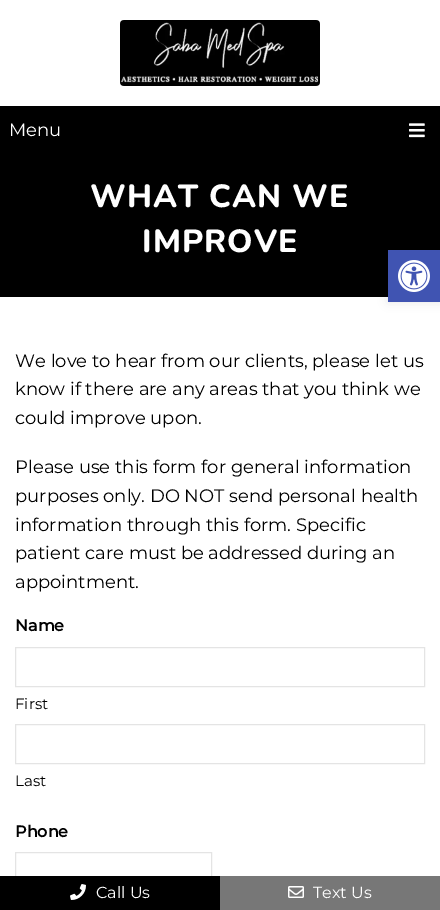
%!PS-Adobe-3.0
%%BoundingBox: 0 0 440 910
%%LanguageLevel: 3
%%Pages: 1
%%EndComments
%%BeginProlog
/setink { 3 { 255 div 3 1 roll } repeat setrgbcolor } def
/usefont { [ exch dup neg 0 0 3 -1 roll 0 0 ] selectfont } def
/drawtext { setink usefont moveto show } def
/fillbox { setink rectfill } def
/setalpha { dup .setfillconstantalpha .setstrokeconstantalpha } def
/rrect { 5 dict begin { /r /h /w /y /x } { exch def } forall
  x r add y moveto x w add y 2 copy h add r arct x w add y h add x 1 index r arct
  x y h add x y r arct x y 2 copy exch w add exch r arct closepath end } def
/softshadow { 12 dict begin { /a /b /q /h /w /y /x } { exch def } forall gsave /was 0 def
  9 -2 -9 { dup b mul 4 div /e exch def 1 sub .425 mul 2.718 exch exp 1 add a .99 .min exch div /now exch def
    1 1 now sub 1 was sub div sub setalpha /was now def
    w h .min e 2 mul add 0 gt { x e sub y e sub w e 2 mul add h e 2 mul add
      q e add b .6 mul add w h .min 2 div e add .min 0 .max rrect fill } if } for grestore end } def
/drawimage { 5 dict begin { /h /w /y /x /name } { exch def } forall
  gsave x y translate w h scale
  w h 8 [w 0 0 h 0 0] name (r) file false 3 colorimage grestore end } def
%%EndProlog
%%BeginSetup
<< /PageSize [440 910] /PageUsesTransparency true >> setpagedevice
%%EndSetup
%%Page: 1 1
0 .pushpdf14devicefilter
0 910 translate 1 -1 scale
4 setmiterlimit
0 0 440 910 255 255 255 fillbox
(assets/img1.rgb) 120 20 200 66 drawimage
0 106 440 191 0 0 0 fillbox
(Menu) 9 136 /Montserrat-Regular 18 255 255 255 drawtext
(assets/img2.rgb) 409 123 16 15 drawimage
/Nunito-ExtraBold 32 usefont
90 207 moveto 1 0 (WHAT CAN WE) ashow
142 252 moveto 1 0 (IMPROVE) ashow
(We love to hear from our clients, please let us) 15 367 /Montserrat-Regular 18 0 0 0 drawtext
(know if there are any areas that you think we) 15 395 /Montserrat-Regular 18 0 0 0 drawtext
(could improve upon.) 15 424 /Montserrat-Regular 18 0 0 0 drawtext
(Please use this form for general information) 15 473 /Montserrat-Regular 18 0 0 0 drawtext
(purposes only. DO NOT send personal health) 15 502 /Montserrat-Regular 18 0 0 0 drawtext
(information through this form. Specific) 15 531 /Montserrat-Regular 18 0 0 0 drawtext
(patient care must be addressed during an) 15 559 /Montserrat-Regular 18 0 0 0 drawtext
(appointment.) 15 588 /Montserrat-Regular 18 0 0 0 drawtext
(Name) 15 631 /Montserrat-Bold 16 0 0 0 drawtext
228 228 228 setink
15.5 647.5 409 39 rectstroke
(First) 15 709 /Montserrat-Regular 15 0 0 0 drawtext
228 228 228 setink
15.5 724.5 409 39 rectstroke
(Last) 15 786 /Montserrat-Regular 15 0 0 0 drawtext
(Phone) 15 837 /Montserrat-Bold 16 0 0 0 drawtext
228 228 228 setink
15.5 852.5 196 47 rectstroke
0 0 0 setink
388 250 52 52 0 5 0.1 softshadow
388 250 52 52 64 84 178 fillbox
(assets/img3.rgb) 398 260 32 32 drawimage
0 876 220 34 0 0 0 fillbox
(assets/img4.rgb) 70 884 16 16 drawimage
(Call Us) 96 898 /Montserrat-Regular 16 255 255 255 drawtext
220 876 220 34 119 119 119 fillbox
(assets/img5.rgb) 288 886 16 12 drawimage
(Text Us) 313 898 /Montserrat-Regular 16 255 255 255 drawtext
.poppdf14devicefilter showpage
%%EOF
